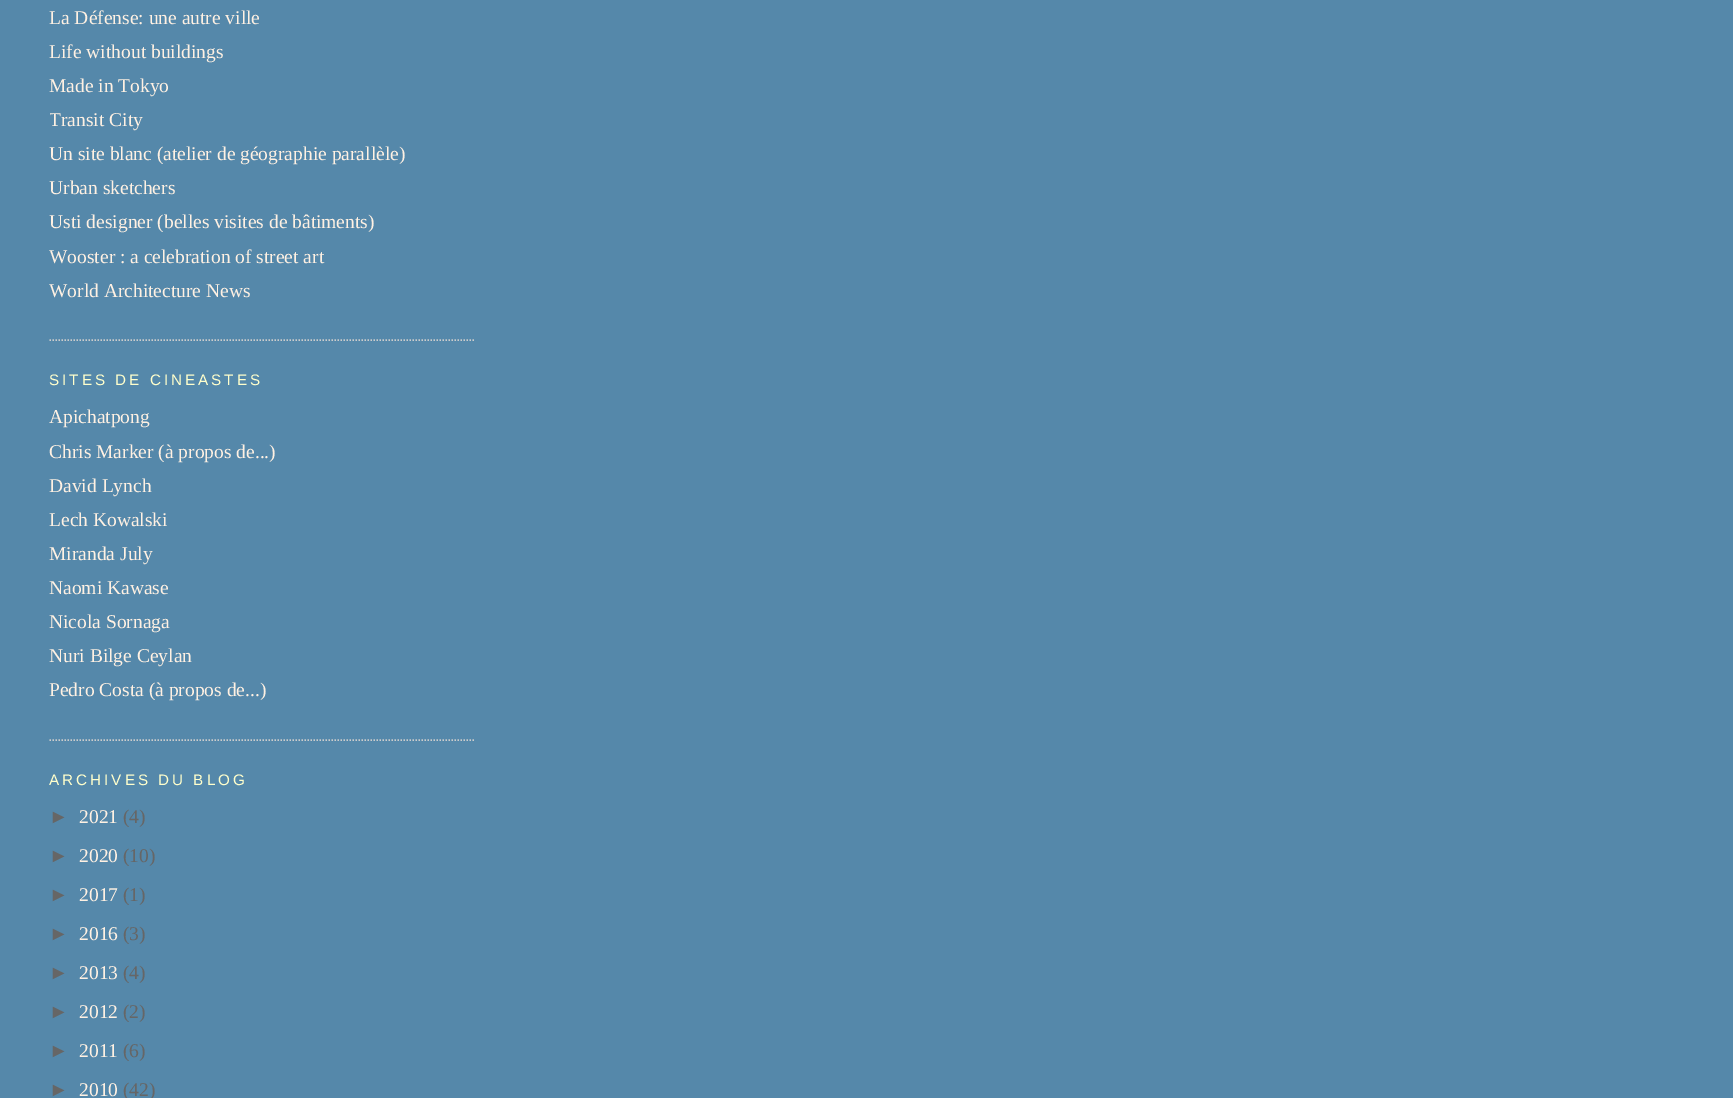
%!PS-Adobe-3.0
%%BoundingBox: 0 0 1733 1098
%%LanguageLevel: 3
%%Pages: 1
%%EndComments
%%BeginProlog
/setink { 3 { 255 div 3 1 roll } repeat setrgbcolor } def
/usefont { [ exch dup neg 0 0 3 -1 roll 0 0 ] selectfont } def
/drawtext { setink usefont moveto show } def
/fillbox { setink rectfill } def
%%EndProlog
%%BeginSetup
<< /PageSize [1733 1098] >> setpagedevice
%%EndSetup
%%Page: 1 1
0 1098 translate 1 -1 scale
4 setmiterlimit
0 0 1733 1098 85 136 170 fillbox
204 204 204 setink
1.5 setlinewidth
[1.5 1.5] 0 setdash
49.5 340 moveto 475.5 340 lineto stroke
(La Défense: une autre ville) 49 24 /LiberationSerif-Regular 19.5 255 241 227 drawtext
(Life without buildings) 49 58 /LiberationSerif-Regular 19.5 255 241 227 drawtext
(Made in Tokyo) 49 92 /LiberationSerif-Regular 19.5 255 241 227 drawtext
gsave
50 0 426 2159 rectclip
(Transit City) 49 126 /LiberationSerif-Regular 19.5 255 241 227 drawtext
grestore
(Un site blanc \(atelier de géographie parallèle\)) 49 160 /LiberationSerif-Regular 19.5 255 241 227 drawtext
(Urban sketchers) 49 194 /LiberationSerif-Regular 19.5 255 241 227 drawtext
(Usti designer \(belles visites de bâtiments\)) 49 228 /LiberationSerif-Regular 19.5 255 241 227 drawtext
(Wooster : a celebration of street art) 49 263 /LiberationSerif-Regular 19.5 255 241 227 drawtext
(World Architecture News) 49 297 /LiberationSerif-Regular 19.5 255 241 227 drawtext
204 204 204 setink
49.5 740 moveto 475.5 740 lineto stroke
/LiberationSans-Regular 15.25 usefont
255 255 204 setink
49 385 moveto 3 0 (SITES DE CINEASTES) ashow
(Apichatpong) 49 423 /LiberationSerif-Regular 19.5 255 241 227 drawtext
(Chris Marker \(à propos de...\)) 49 458 /LiberationSerif-Regular 19.5 255 241 227 drawtext
(David Lynch) 49 492 /LiberationSerif-Regular 19.5 255 241 227 drawtext
(Lech Kowalski) 49 526 /LiberationSerif-Regular 19.5 255 241 227 drawtext
(Miranda July) 49 560 /LiberationSerif-Regular 19.5 255 241 227 drawtext
(Naomi Kawase) 49 594 /LiberationSerif-Regular 19.5 255 241 227 drawtext
(Nicola Sornaga) 49 628 /LiberationSerif-Regular 19.5 255 241 227 drawtext
(Nuri Bilge Ceylan) 49 662 /LiberationSerif-Regular 19.5 255 241 227 drawtext
(Pedro Costa \(à propos de...\)) 49 696 /LiberationSerif-Regular 19.5 255 241 227 drawtext
/LiberationSans-Regular 15.25 usefont
255 255 204 setink
49 785 moveto 3 0 (ARCHIVES DU BLOG) ashow
(►) 49 823 /LiberationSans-Regular 19.5 102 102 102 drawtext
(2021) 79 823 /LiberationSerif-Regular 19.5 255 241 227 drawtext
(\(4\)) 123 823 /LiberationSerif-Regular 19.5 102 102 102 drawtext
(►) 49 862 /LiberationSans-Regular 19.5 102 102 102 drawtext
(2020) 79 862 /LiberationSerif-Regular 19.5 255 241 227 drawtext
(\(10\)) 123 862 /LiberationSerif-Regular 19.5 102 102 102 drawtext
(►) 49 901 /LiberationSans-Regular 19.5 102 102 102 drawtext
(2017) 79 901 /LiberationSerif-Regular 19.5 255 241 227 drawtext
(\(1\)) 123 901 /LiberationSerif-Regular 19.5 102 102 102 drawtext
(►) 49 940 /LiberationSans-Regular 19.5 102 102 102 drawtext
(2016) 79 940 /LiberationSerif-Regular 19.5 255 241 227 drawtext
(\(3\)) 123 940 /LiberationSerif-Regular 19.5 102 102 102 drawtext
(►) 49 979 /LiberationSans-Regular 19.5 102 102 102 drawtext
(2013) 79 979 /LiberationSerif-Regular 19.5 255 241 227 drawtext
(\(4\)) 123 979 /LiberationSerif-Regular 19.5 102 102 102 drawtext
(►) 49 1018 /LiberationSans-Regular 19.5 102 102 102 drawtext
(2012) 79 1018 /LiberationSerif-Regular 19.5 255 241 227 drawtext
(\(2\)) 123 1018 /LiberationSerif-Regular 19.5 102 102 102 drawtext
(►) 49 1057 /LiberationSans-Regular 19.5 102 102 102 drawtext
(2011) 79 1057 /LiberationSerif-Regular 19.5 255 241 227 drawtext
(\(6\)) 123 1057 /LiberationSerif-Regular 19.5 102 102 102 drawtext
(►) 49 1096 /LiberationSans-Regular 19.5 102 102 102 drawtext
(2010) 79 1096 /LiberationSerif-Regular 19.5 255 241 227 drawtext
(\(42\)) 123 1096 /LiberationSerif-Regular 19.5 102 102 102 drawtext
showpage
%%EOF
